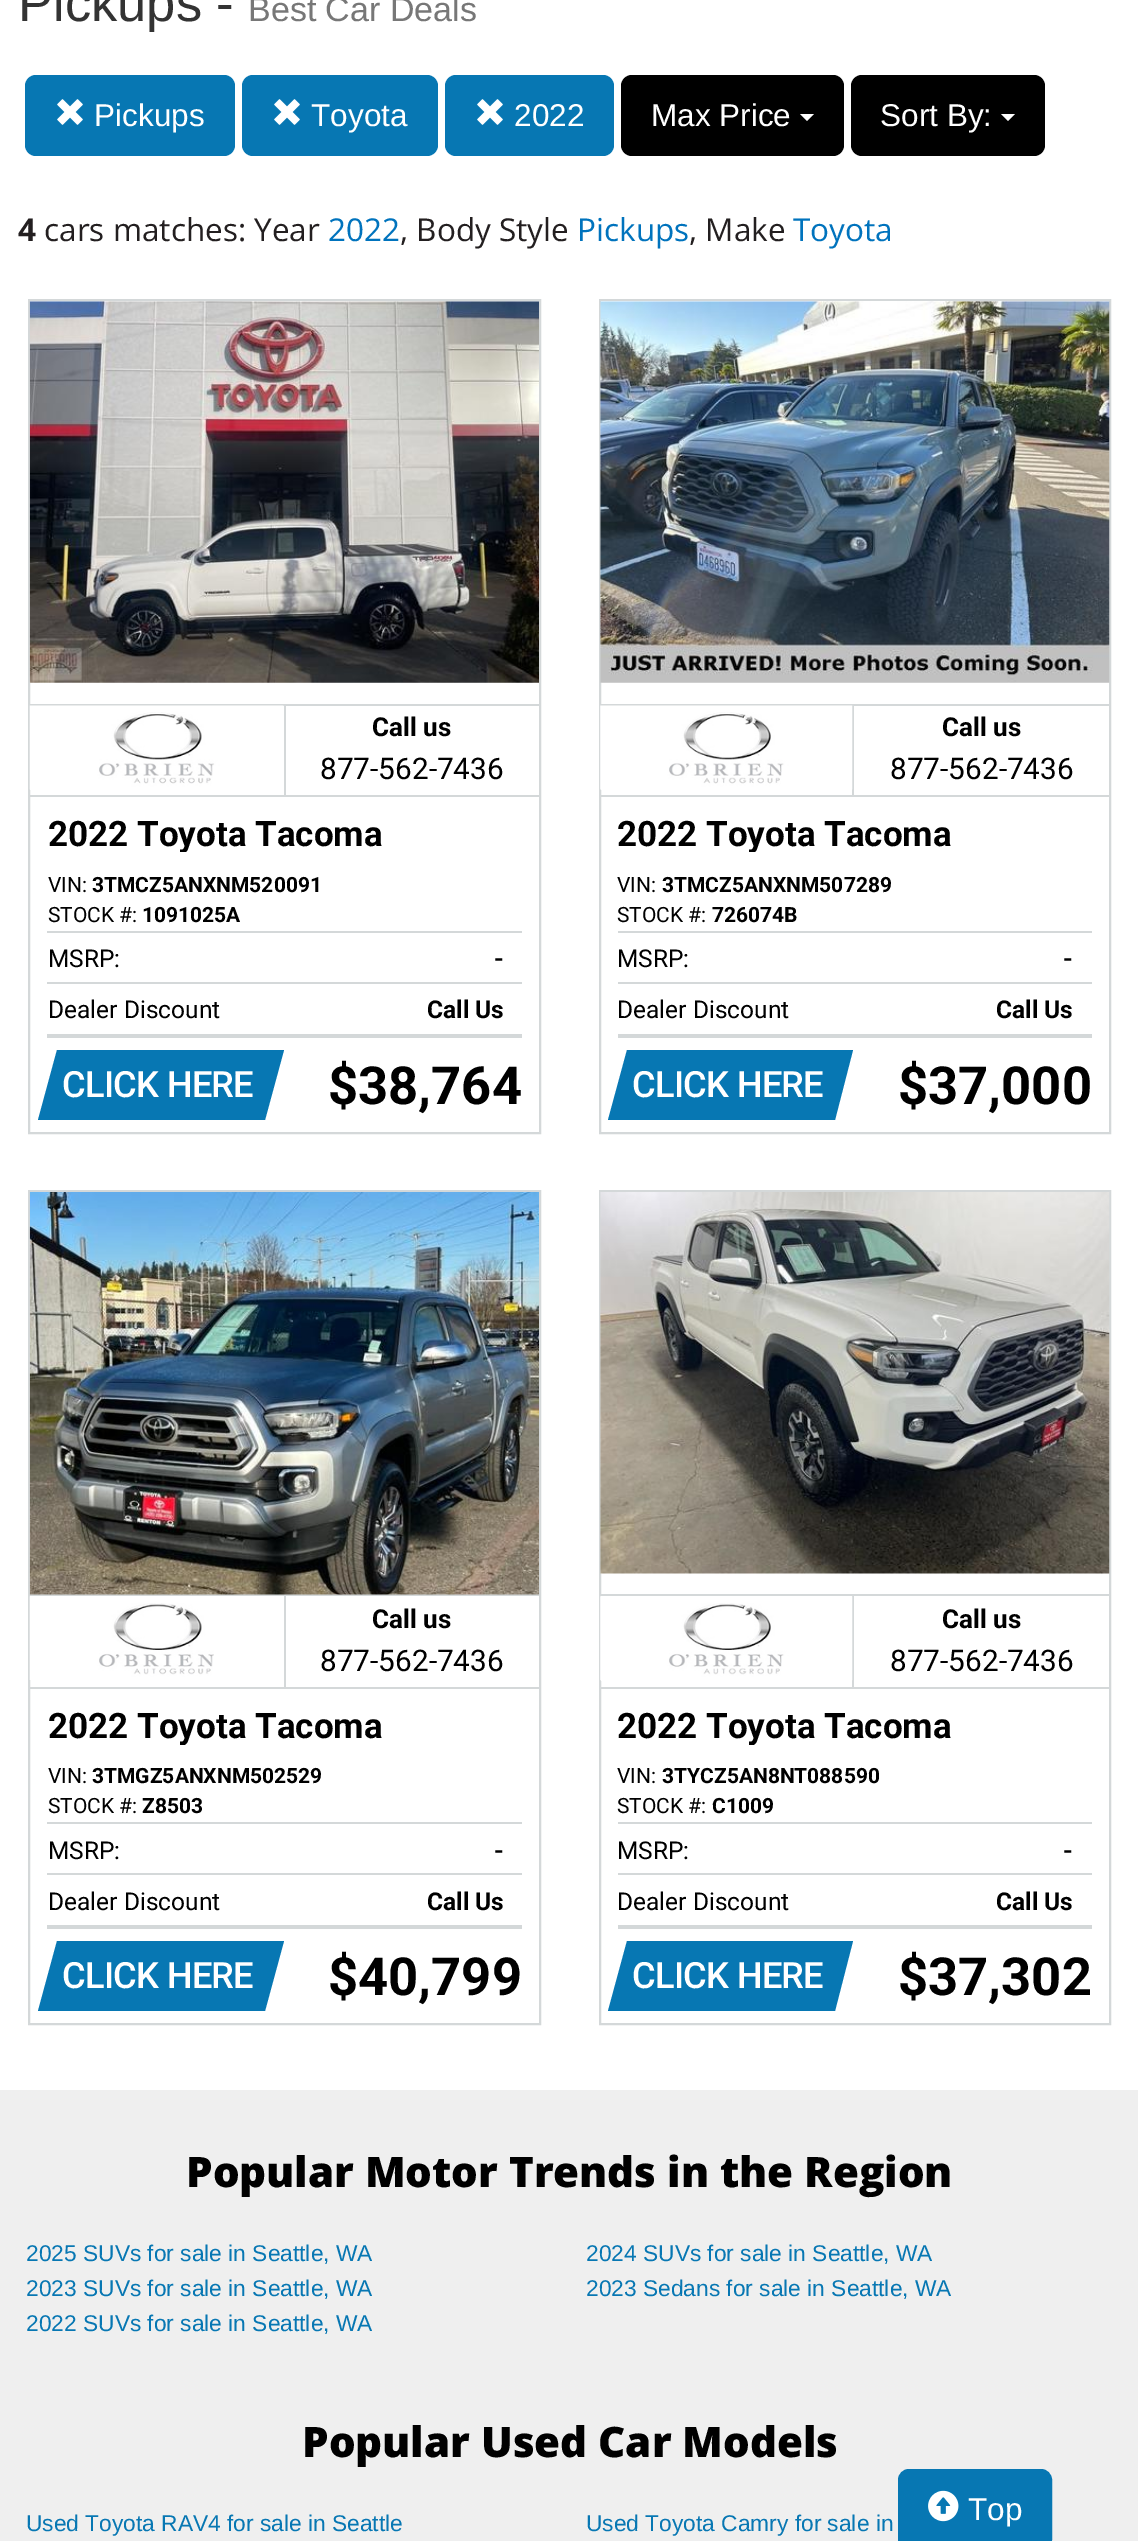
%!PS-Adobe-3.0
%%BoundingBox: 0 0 1138 2541
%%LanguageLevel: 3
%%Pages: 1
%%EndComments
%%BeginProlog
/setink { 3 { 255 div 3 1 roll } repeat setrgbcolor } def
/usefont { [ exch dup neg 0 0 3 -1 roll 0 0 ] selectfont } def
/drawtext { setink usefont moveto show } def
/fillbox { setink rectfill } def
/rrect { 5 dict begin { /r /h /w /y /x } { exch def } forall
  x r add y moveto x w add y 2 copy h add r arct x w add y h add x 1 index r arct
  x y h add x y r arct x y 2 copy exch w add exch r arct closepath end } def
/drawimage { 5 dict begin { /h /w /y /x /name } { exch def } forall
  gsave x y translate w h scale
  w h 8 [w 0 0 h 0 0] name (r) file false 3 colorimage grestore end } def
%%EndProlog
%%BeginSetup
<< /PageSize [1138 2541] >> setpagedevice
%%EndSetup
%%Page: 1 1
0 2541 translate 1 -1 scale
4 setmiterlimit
0 0 1138 2541 255 255 255 fillbox
(Pickups -) 18 21 /LiberationSans-Regular 52.5 51 51 51 drawtext
(Best Car Deals) 248 21 /LiberationSans-Regular 34 119 119 119 drawtext
7 119 179 setink
25 75 210 81 11 rrect fill
(assets/img1.rgb) 57 99 26 26 drawimage
(Pickups) 94 126 /LiberationSans-Regular 31.5 255 255 255 drawtext
7 119 179 setink
242 75 196 81 11 rrect fill
(assets/img1.rgb) 274 99 26 26 drawimage
(Toyota) 311 126 /LiberationSans-Regular 31.5 255 255 255 drawtext
7 119 179 setink
445 75 169 81 11 rrect fill
(assets/img1.rgb) 477 99 26 26 drawimage
(2022) 514 126 /LiberationSans-Regular 31.5 255 255 255 drawtext
0 0 0 setink
621 75 223 81 11 rrect fill
(Max Price) 651 126 /LiberationSans-Regular 31.5 255 255 255 drawtext
800 114 moveto 814 114 lineto 807 121 lineto closepath fill
0 0 0 setink
851 75 194 81 11 rrect fill
(Sort By:) 880 126 /LiberationSans-Regular 31.5 255 255 255 drawtext
1001 114 moveto 1015 114 lineto 1008 121 lineto closepath fill
(4) 18 241 /OpenSans-Bold 31.5 35 31 32 drawtext
(cars matches: Year) 44 241 /OpenSans-Regular 31.5 35 31 32 drawtext
(2022) 328 241 /OpenSans-Regular 31.5 0 115 189 drawtext
(, Body Style) 400 241 /OpenSans-Regular 31.5 35 31 32 drawtext
(Pickups) 577 241 /OpenSans-Regular 31.5 0 115 189 drawtext
(, Make) 689 241 /OpenSans-Regular 31.5 35 31 32 drawtext
(Toyota) 793 241 /OpenSans-Regular 31.5 0 115 189 drawtext
212 216 217 setink
2 setlinewidth
29 300 511 833 rectstroke
(assets/img2.rgb) 29 301 510 382 drawimage
30 704 255 2 212 216 217 fillbox
284 704 2 92 212 216 217 fillbox
30 795 509 2 212 216 217 fillbox
(assets/img3.rgb) 29 705 255 85 drawimage
285 704 254 2 212 216 217 fillbox
(Call us) 372 736 /Roboto-Bold 26 0 0 0 drawtext
(877-562-7436) 320 779 /Roboto-Regular 29.75 0 0 0 drawtext
gsave
47 814 335 38 rectclip
(2022 Toyota Tacoma) 48 846 /Roboto-Bold 35 0 0 0 drawtext
grestore
(VIN:) 48 892 /Roboto-Regular 21 0 0 0 drawtext
(3TMCZ5ANXNM520091) 92 892 /Roboto-Bold 21 0 0 0 drawtext
(STOCK #:) 48 922 /Roboto-Regular 21 0 0 0 drawtext
(1091025A) 142 922 /Roboto-Bold 21 0 0 0 drawtext
47 931 475 2 212 216 217 fillbox
47 982 475 2 212 216 217 fillbox
(MSRP:) 48 967 /Roboto-Regular 24.5 0 0 0 drawtext
(-) 494 967 /Roboto-Bold 24.5 0 0 0 drawtext
47 1034 475 4 212 216 217 fillbox
(Dealer Discount) 48 1018 /Roboto-Regular 24.5 0 0 0 drawtext
(Call Us) 427 1018 /Roboto-Bold 24.5 0 0 0 drawtext
7 119 179 setink
57 1050 moveto 284 1050 lineto 265 1120 lineto 38 1120 lineto closepath fill
/Roboto-Medium 36.25 usefont
255 255 255 setink
62 1097 moveto -0.75 0 (CLICK HERE) ashow
($38,764) 328 1104 /Roboto-Bold 52.5 0 0 0 drawtext
212 216 217 setink
600 300 510 833 rectstroke
(assets/img4.rgb) 600 301 510 382 drawimage
600 704 510 2 212 216 217 fillbox
852 704 2 92 212 216 217 fillbox
600 795 510 2 212 216 217 fillbox
(assets/img5.rgb) 600 705 253 85 drawimage
(Call us) 942 736 /Roboto-Bold 26 0 0 0 drawtext
(877-562-7436) 890 779 /Roboto-Regular 29.75 0 0 0 drawtext
gsave
618 814 334 38 rectclip
(2022 Toyota Tacoma) 617 846 /Roboto-Bold 35 0 0 0 drawtext
grestore
(VIN:) 617 892 /Roboto-Regular 21 0 0 0 drawtext
(3TMCZ5ANXNM507289) 662 892 /Roboto-Bold 21 0 0 0 drawtext
(STOCK #:) 617 922 /Roboto-Regular 21 0 0 0 drawtext
(726074B) 712 922 /Roboto-Bold 21 0 0 0 drawtext
618 931 474 2 212 216 217 fillbox
618 982 474 2 212 216 217 fillbox
(MSRP:) 617 967 /Roboto-Regular 24.5 0 0 0 drawtext
(-) 1063 967 /Roboto-Bold 24.5 0 0 0 drawtext
618 1034 474 4 212 216 217 fillbox
(Dealer Discount) 617 1018 /Roboto-Regular 24.5 0 0 0 drawtext
(Call Us) 996 1018 /Roboto-Bold 24.5 0 0 0 drawtext
7 119 179 setink
627 1050 moveto 853 1050 lineto 835 1120 lineto 608 1120 lineto closepath fill
/Roboto-Medium 36.25 usefont
255 255 255 setink
632 1097 moveto -0.75 0 (CLICK HERE) ashow
($37,000) 898 1104 /Roboto-Bold 52.5 0 0 0 drawtext
212 216 217 setink
29 1191 511 833 rectstroke
30 1594 255 2 212 216 217 fillbox
284 1594 2 95 212 216 217 fillbox
285 1594 254 2 212 216 217 fillbox
(assets/img6.rgb) 29 1192 510 403 drawimage
30 1687 509 2 212 216 217 fillbox
(assets/img7.rgb) 29 1596 185 84 drawimage
(Call us) 372 1628 /Roboto-Bold 26 0 0 0 drawtext
(877-562-7436) 320 1671 /Roboto-Regular 29.75 0 0 0 drawtext
gsave
47 1706 335 39 rectclip
(2022 Toyota Tacoma) 48 1738 /Roboto-Bold 35 0 0 0 drawtext
grestore
(VIN:) 48 1783 /Roboto-Regular 21 0 0 0 drawtext
(3TMGZ5ANXNM502529) 92 1783 /Roboto-Bold 21 0 0 0 drawtext
(STOCK #:) 48 1813 /Roboto-Regular 21 0 0 0 drawtext
(Z8503) 142 1813 /Roboto-Bold 21 0 0 0 drawtext
47 1822 475 2 212 216 217 fillbox
47 1873 475 2 212 216 217 fillbox
(MSRP:) 48 1859 /Roboto-Regular 24.5 0 0 0 drawtext
(-) 494 1859 /Roboto-Bold 24.5 0 0 0 drawtext
47 1925 475 4 212 216 217 fillbox
(Dealer Discount) 48 1910 /Roboto-Regular 24.5 0 0 0 drawtext
(Call Us) 427 1910 /Roboto-Bold 24.5 0 0 0 drawtext
7 119 179 setink
57 1941 moveto 284 1941 lineto 265 2011 lineto 38 2011 lineto closepath fill
/Roboto-Medium 36.25 usefont
255 255 255 setink
62 1988 moveto -0.75 0 (CLICK HERE) ashow
($40,799) 328 1995 /Roboto-Bold 52.5 0 0 0 drawtext
212 216 217 setink
600 1191 510 833 rectstroke
(assets/img8.rgb) 600 1192 510 382 drawimage
600 1594 510 2 212 216 217 fillbox
852 1594 2 95 212 216 217 fillbox
600 1687 510 2 212 216 217 fillbox
(assets/img9.rgb) 600 1596 253 85 drawimage
(Call us) 942 1628 /Roboto-Bold 26 0 0 0 drawtext
(877-562-7436) 890 1671 /Roboto-Regular 29.75 0 0 0 drawtext
gsave
618 1706 334 39 rectclip
(2022 Toyota Tacoma) 617 1738 /Roboto-Bold 35 0 0 0 drawtext
grestore
(VIN:) 617 1783 /Roboto-Regular 21 0 0 0 drawtext
(3TYCZ5AN8NT088590) 662 1783 /Roboto-Bold 21 0 0 0 drawtext
(STOCK #:) 617 1813 /Roboto-Regular 21 0 0 0 drawtext
(C1009) 712 1813 /Roboto-Bold 21 0 0 0 drawtext
618 1822 474 2 212 216 217 fillbox
618 1873 474 2 212 216 217 fillbox
(MSRP:) 617 1859 /Roboto-Regular 24.5 0 0 0 drawtext
(-) 1063 1859 /Roboto-Bold 24.5 0 0 0 drawtext
618 1925 474 4 212 216 217 fillbox
(Dealer Discount) 617 1910 /Roboto-Regular 24.5 0 0 0 drawtext
(Call Us) 996 1910 /Roboto-Bold 24.5 0 0 0 drawtext
7 119 179 setink
627 1941 moveto 853 1941 lineto 835 2011 lineto 608 2011 lineto closepath fill
/Roboto-Medium 36.25 usefont
255 255 255 setink
632 1988 moveto -0.75 0 (CLICK HERE) ashow
($37,302) 898 1995 /Roboto-Bold 52.5 0 0 0 drawtext
0 2090 1138 451 239 239 239 fillbox
7 119 179 setink
899 2470 152 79 10 rrect gsave fill grestore
stroke
(assets/img10.rgb) 928 2490 31 32 drawimage
(Top) 968 2520 /LiberationSans-Regular 31.5 255 255 255 drawtext
(Popular Motor Trends in the Region) 186 2187 /OpenSans-ExtraBold 42 0 0 0 drawtext
(2025 SUVs for sale in Seattle, WA) 26 2261 /LiberationSans-Regular 22.75 7 119 179 drawtext
(2024 SUVs for sale in Seattle, WA) 586 2261 /LiberationSans-Regular 22.75 7 119 179 drawtext
(2023 SUVs for sale in Seattle, WA) 26 2296 /LiberationSans-Regular 22.75 7 119 179 drawtext
(2023 Sedans for sale in Seattle, WA) 586 2296 /LiberationSans-Regular 22.75 7 119 179 drawtext
(2022 SUVs for sale in Seattle, WA) 26 2331 /LiberationSans-Regular 22.75 7 119 179 drawtext
(Popular Used Car Models) 302 2457 /OpenSans-ExtraBold 42 0 0 0 drawtext
(Used Toyota RAV4 for sale in Seattle) 26 2531 /LiberationSans-Regular 22.75 7 119 179 drawtext
(Used Toyota Camry for sale in) 586 2531 /LiberationSans-Regular 22.75 7 119 179 drawtext
showpage
%%EOF
